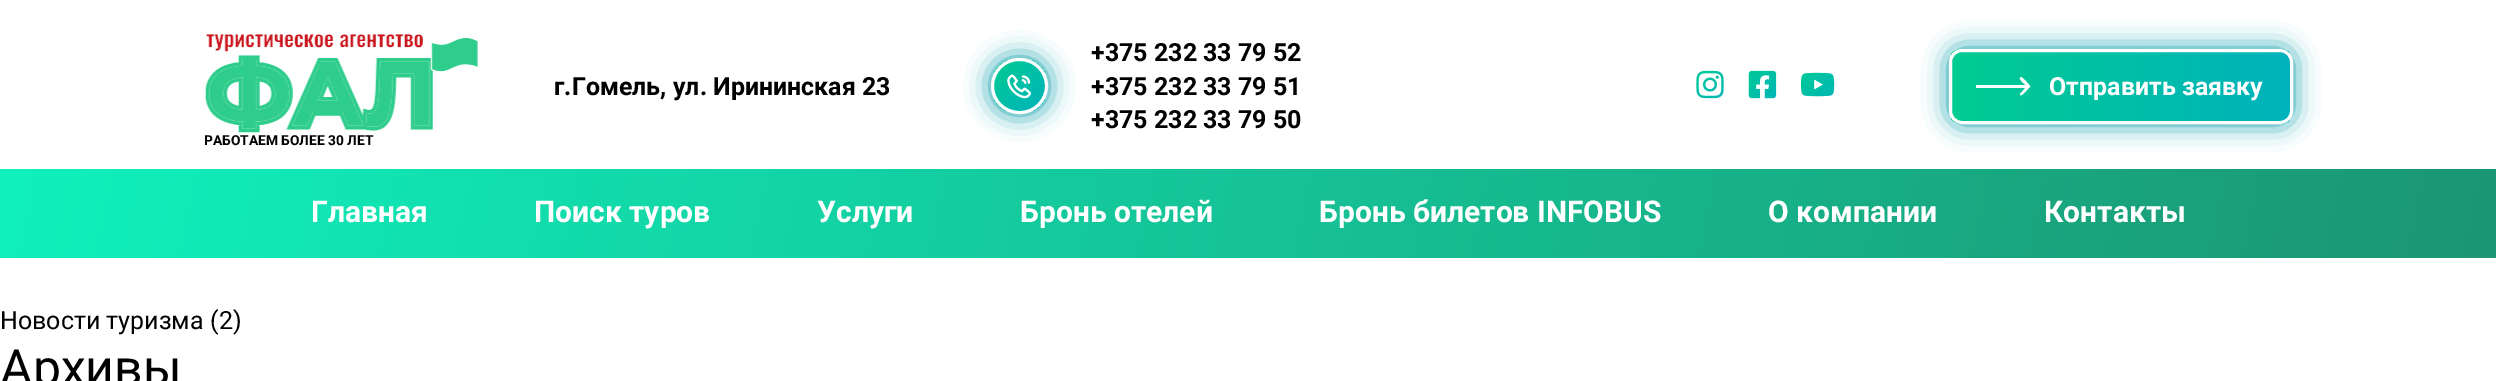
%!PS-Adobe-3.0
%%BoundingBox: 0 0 2496 381
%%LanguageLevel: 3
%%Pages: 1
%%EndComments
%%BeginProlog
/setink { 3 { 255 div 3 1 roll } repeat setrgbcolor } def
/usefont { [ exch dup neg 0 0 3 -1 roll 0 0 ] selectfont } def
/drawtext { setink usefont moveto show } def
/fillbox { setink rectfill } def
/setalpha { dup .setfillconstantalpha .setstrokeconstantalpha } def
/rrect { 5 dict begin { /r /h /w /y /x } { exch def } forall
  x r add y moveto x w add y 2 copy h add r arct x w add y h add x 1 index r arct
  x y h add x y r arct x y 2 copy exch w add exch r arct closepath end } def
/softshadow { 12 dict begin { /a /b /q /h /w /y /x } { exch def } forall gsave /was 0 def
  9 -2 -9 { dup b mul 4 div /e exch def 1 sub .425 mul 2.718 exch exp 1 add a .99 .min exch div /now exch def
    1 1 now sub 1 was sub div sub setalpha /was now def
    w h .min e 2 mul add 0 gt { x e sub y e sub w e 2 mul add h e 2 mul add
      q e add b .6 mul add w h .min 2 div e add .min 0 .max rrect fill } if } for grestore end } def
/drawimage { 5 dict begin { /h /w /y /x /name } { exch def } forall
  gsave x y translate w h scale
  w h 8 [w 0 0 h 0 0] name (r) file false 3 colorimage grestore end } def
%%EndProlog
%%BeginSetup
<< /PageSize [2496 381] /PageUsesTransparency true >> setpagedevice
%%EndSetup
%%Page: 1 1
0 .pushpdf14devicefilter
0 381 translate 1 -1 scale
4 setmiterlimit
0 0 2496 381 255 255 255 fillbox
(г.Гомель, ул. Ирининская 23) 554 95 /Roboto-Bold 25 1 1 1 drawtext
0 153 163 setink
991 58 57 56 28 12.5 1 softshadow
gsave
991 58 57 56 28 rrect clip newpath
gsave 994 60 moveto 1045 60 lineto 1045 111 lineto 994 111 lineto closepath clip newpath
<< /ShadingType 2 /ColorSpace /DeviceRGB /Coords [995 59 1044 113] /Extend [true true] /Function << /FunctionType 2 /Domain [0 1] /C0 [0 0.8 0.569] /C1 [0 0.698 0.737] /N 1 >> >> shfill grestore
grestore
255 255 255 setink
3 setlinewidth
992.5 59.5 54 53 26.5 rrect stroke
(assets/img1.rgb) 1007 74 25 25 drawimage
(+375 232 33 79 52) 1091 61 /Roboto-Bold 25 1 1 1 drawtext
(+375 232 33 79 51) 1091 95 /Roboto-Bold 25 1 1 1 drawtext
(+375 232 33 79 50) 1091 128 /Roboto-Bold 25 1 1 1 drawtext
(assets/img2.rgb) 1696 70 28 29 drawimage
(assets/img3.rgb) 1748 70 29 29 drawimage
(assets/img4.rgb) 1800 72 35 25 drawimage
0 153 163 setink
1949 49 344 75 13 12.5 1 softshadow
gsave
1949 49 344 75 13 rrect clip newpath
gsave 1951 49 moveto 2290 49 lineto 2290 124 lineto 1951 124 lineto closepath clip newpath
<< /ShadingType 2 /ColorSpace /DeviceRGB /Coords [1951 86 2290 86] /Extend [true true] /Function << /FunctionType 2 /Domain [0 1] /C0 [0 0.8 0.569] /C1 [0 0.698 0.737] /N 1 >> >> shfill grestore
grestore
255 255 255 setink
1950.5 50.5 341 72 11.5 rrect stroke
2030 87 moveto 2031 86 2026 82 2026 81 curveto 2025 81 2021 75 2020 78 curveto 2019 79 2022 81 2022 82 curveto 2027 86 lineto 2020 94 lineto 2020 95 lineto 2022 97 2028 88 2030 87 curveto closepath 1976 88 moveto 2029 88 lineto 2029 85 lineto 1976 85 lineto closepath fill
(Отправить заявку) 2049 95 /Roboto-Bold 25 255 255 255 drawtext
(assets/img5.rgb) 205 34 273 99 drawimage
(РАБОТАЕМ БОЛЕЕ 30 ЛЕТ) 204 145 /Roboto-Bold 13.75 1 1 1 drawtext
gsave 0 169 moveto 2496 169 lineto 2496 258 lineto 0 258 lineto closepath clip newpath
<< /ShadingType 2 /ColorSpace /DeviceRGB /Coords [2451 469 45 -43] /Extend [true true] /Function << /FunctionType 2 /Domain [0 1] /C0 [0.106 0.588 0.447] /C1 [0.063 0.945 0.741] /N 1 >> >> shfill grestore
(Главная) 311 222 /Roboto-Bold 30 255 255 255 drawtext
(Поиск туров) 534 222 /Roboto-Bold 30 255 255 255 drawtext
(Услуги) 817 222 /Roboto-Bold 30 255 255 255 drawtext
(Бронь отелей) 1020 222 /Roboto-Bold 30 255 255 255 drawtext
(Бронь билетов INFOBUS) 1319 222 /Roboto-Bold 30 255 255 255 drawtext
(О компании) 1768 222 /Roboto-Bold 30 255 255 255 drawtext
(Контакты) 2044 222 /Roboto-Bold 30 255 255 255 drawtext
(Новости туризма) 0 329 /Roboto-Regular 25 1 1 1 drawtext
(\(2\)) 210 329 /Roboto-Regular 25 1 1 1 drawtext
(Архивы) 0 385 /Roboto-Regular 50 1 1 1 drawtext
.poppdf14devicefilter showpage
%%EOF
